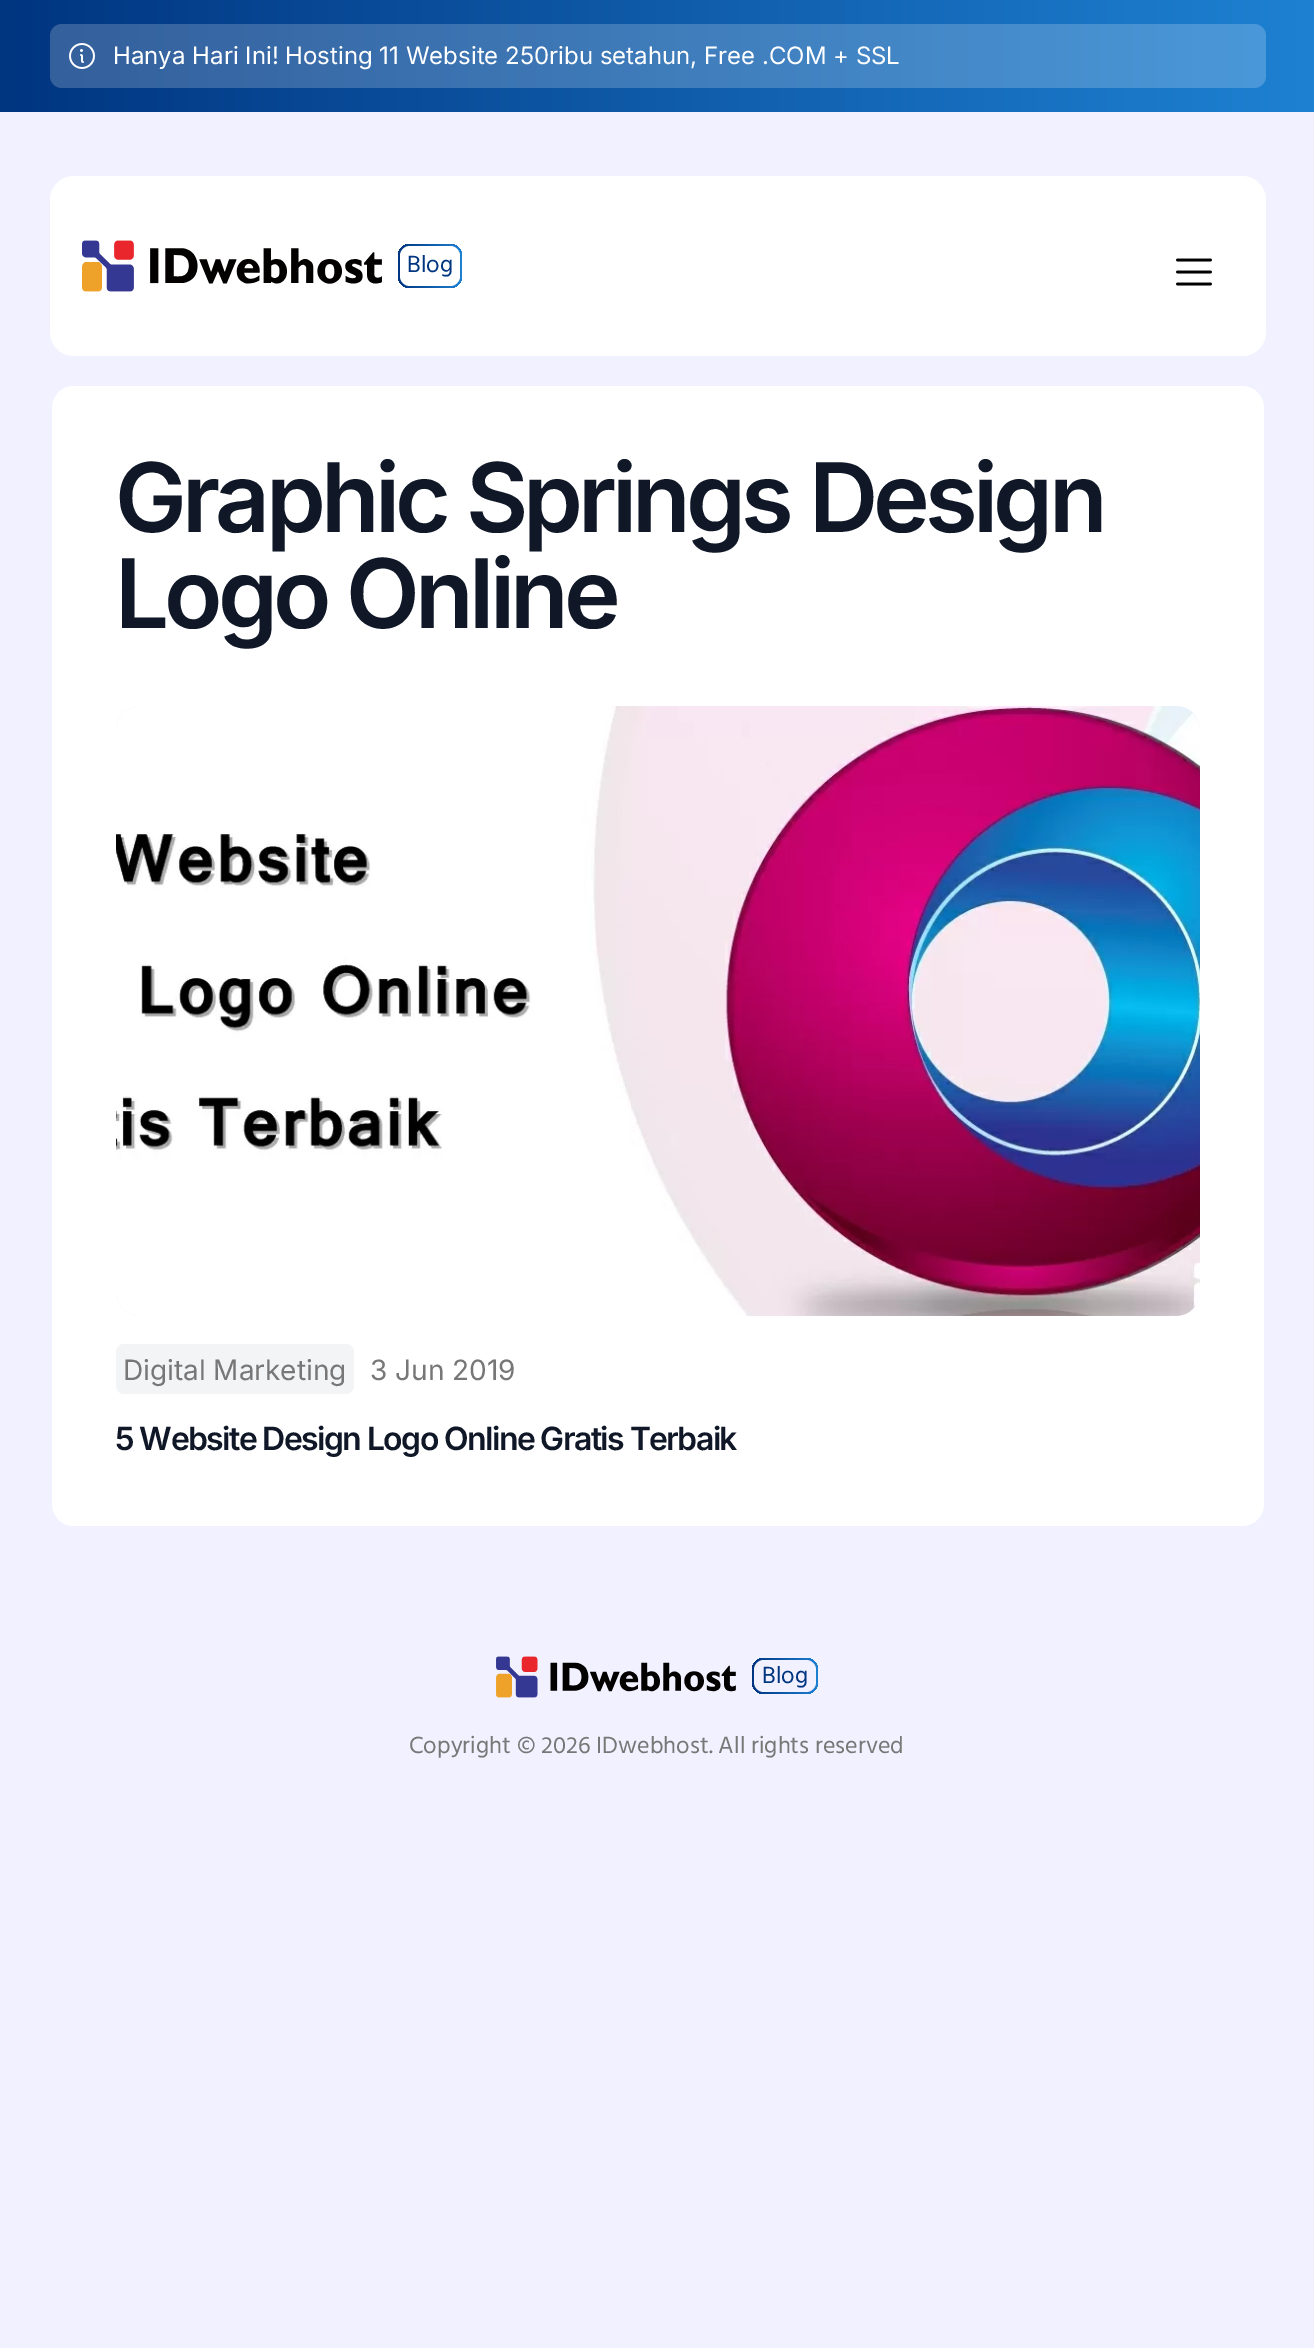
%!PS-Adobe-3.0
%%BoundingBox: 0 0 1314 2348
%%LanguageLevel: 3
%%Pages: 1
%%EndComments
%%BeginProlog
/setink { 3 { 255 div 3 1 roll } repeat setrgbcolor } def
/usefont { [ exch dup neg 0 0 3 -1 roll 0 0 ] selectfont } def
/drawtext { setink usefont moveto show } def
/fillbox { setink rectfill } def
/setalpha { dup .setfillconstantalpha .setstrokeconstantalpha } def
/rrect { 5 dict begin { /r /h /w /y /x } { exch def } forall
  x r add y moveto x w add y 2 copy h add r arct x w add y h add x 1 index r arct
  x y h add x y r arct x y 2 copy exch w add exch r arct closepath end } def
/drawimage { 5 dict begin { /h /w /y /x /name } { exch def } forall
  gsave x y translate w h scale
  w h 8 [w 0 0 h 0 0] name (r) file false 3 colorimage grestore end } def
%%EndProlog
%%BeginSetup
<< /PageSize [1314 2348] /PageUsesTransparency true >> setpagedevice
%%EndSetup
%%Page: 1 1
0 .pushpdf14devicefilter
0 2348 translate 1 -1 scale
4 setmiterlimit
0 0 1314 2348 241 241 255 fillbox
gsave 0 0 moveto 1314 0 lineto 1314 112 lineto 0 112 lineto closepath clip newpath
<< /ShadingType 2 /ColorSpace /DeviceRGB /Coords [0 56 1314 56] /Extend [true true] /Function << /FunctionType 2 /Domain [0 1] /C0 [0 0.208 0.502] /C1 [0.118 0.506 0.824] /N 1 >> >> shfill grestore
0.2 setalpha
255 255 255 setink
50 24 1216 64 12 rrect fill
1 setalpha
(assets/img1.rgb) 69 43 26 26 drawimage
(Hanya Hari Ini! Hosting 11 Website 250ribu setahun, Free .COM + SSL) 113 64 /Inter-Regular 24 255 255 255 drawtext
50 176 1216 180 24 rrect fill
(assets/img2.rgb) 82 240 300 52 drawimage
gsave 398 244 64 44 12 rrect clip newpath
<< /ShadingType 2 /ColorSpace /DeviceRGB /Coords [398 266 462 266] /Extend [true true] /Function << /FunctionType 2 /Domain [0 1] /C0 [0 0.208 0.502] /C1 [0.118 0.506 0.824] /N 1 >> >> shfill grestore
400 246 60 40 10 rrect fill
(Blog) 407 272 /Hind-Regular 24 0 53 128 drawtext
(assets/img3.rgb) 1176 258 36 28 drawimage
255 255 255 setink
52 386 1212 1140 22 rrect fill
/Inter-SemiBold 96 usefont
16 24 40 setink
115 532 moveto -4.8 0 (Graphic Springs Design) ashow
115 628 moveto -4.8 0 (Logo Online) ashow
(assets/img4.rgb) 116 706 1084 610 drawimage
243 244 246 setink
116 1344 238 50 8 rrect fill
(Digital Marketing) 123 1380 /Inter-Regular 28 119 119 119 drawtext
(3 Jun 2019) 370 1380 /Inter-Regular 28 119 119 119 drawtext
/Inter-SemiBold 32 usefont
16 24 40 setink
115 1450 moveto -1.6 0 (5 Website Design Logo Online Gratis Terbaik) ashow
(assets/img5.rgb) 496 1656 240 42 drawimage
gsave 752 1658 66 36 12 rrect clip newpath
<< /ShadingType 2 /ColorSpace /DeviceRGB /Coords [752 1676 818 1676] /Extend [true true] /Function << /FunctionType 2 /Domain [0 1] /C0 [0 0.208 0.502] /C1 [0.118 0.506 0.824] /N 1 >> >> shfill grestore
241 241 255 setink
754 1660 62 32 10 rrect fill
(Blog) 762 1683 /Hind-Regular 24 0 53 128 drawtext
(Copyright © 2026 IDwebhost. All rights reserved) 409 1753 /Hind-Regular 24 119 119 119 drawtext
.poppdf14devicefilter showpage
%%EOF
